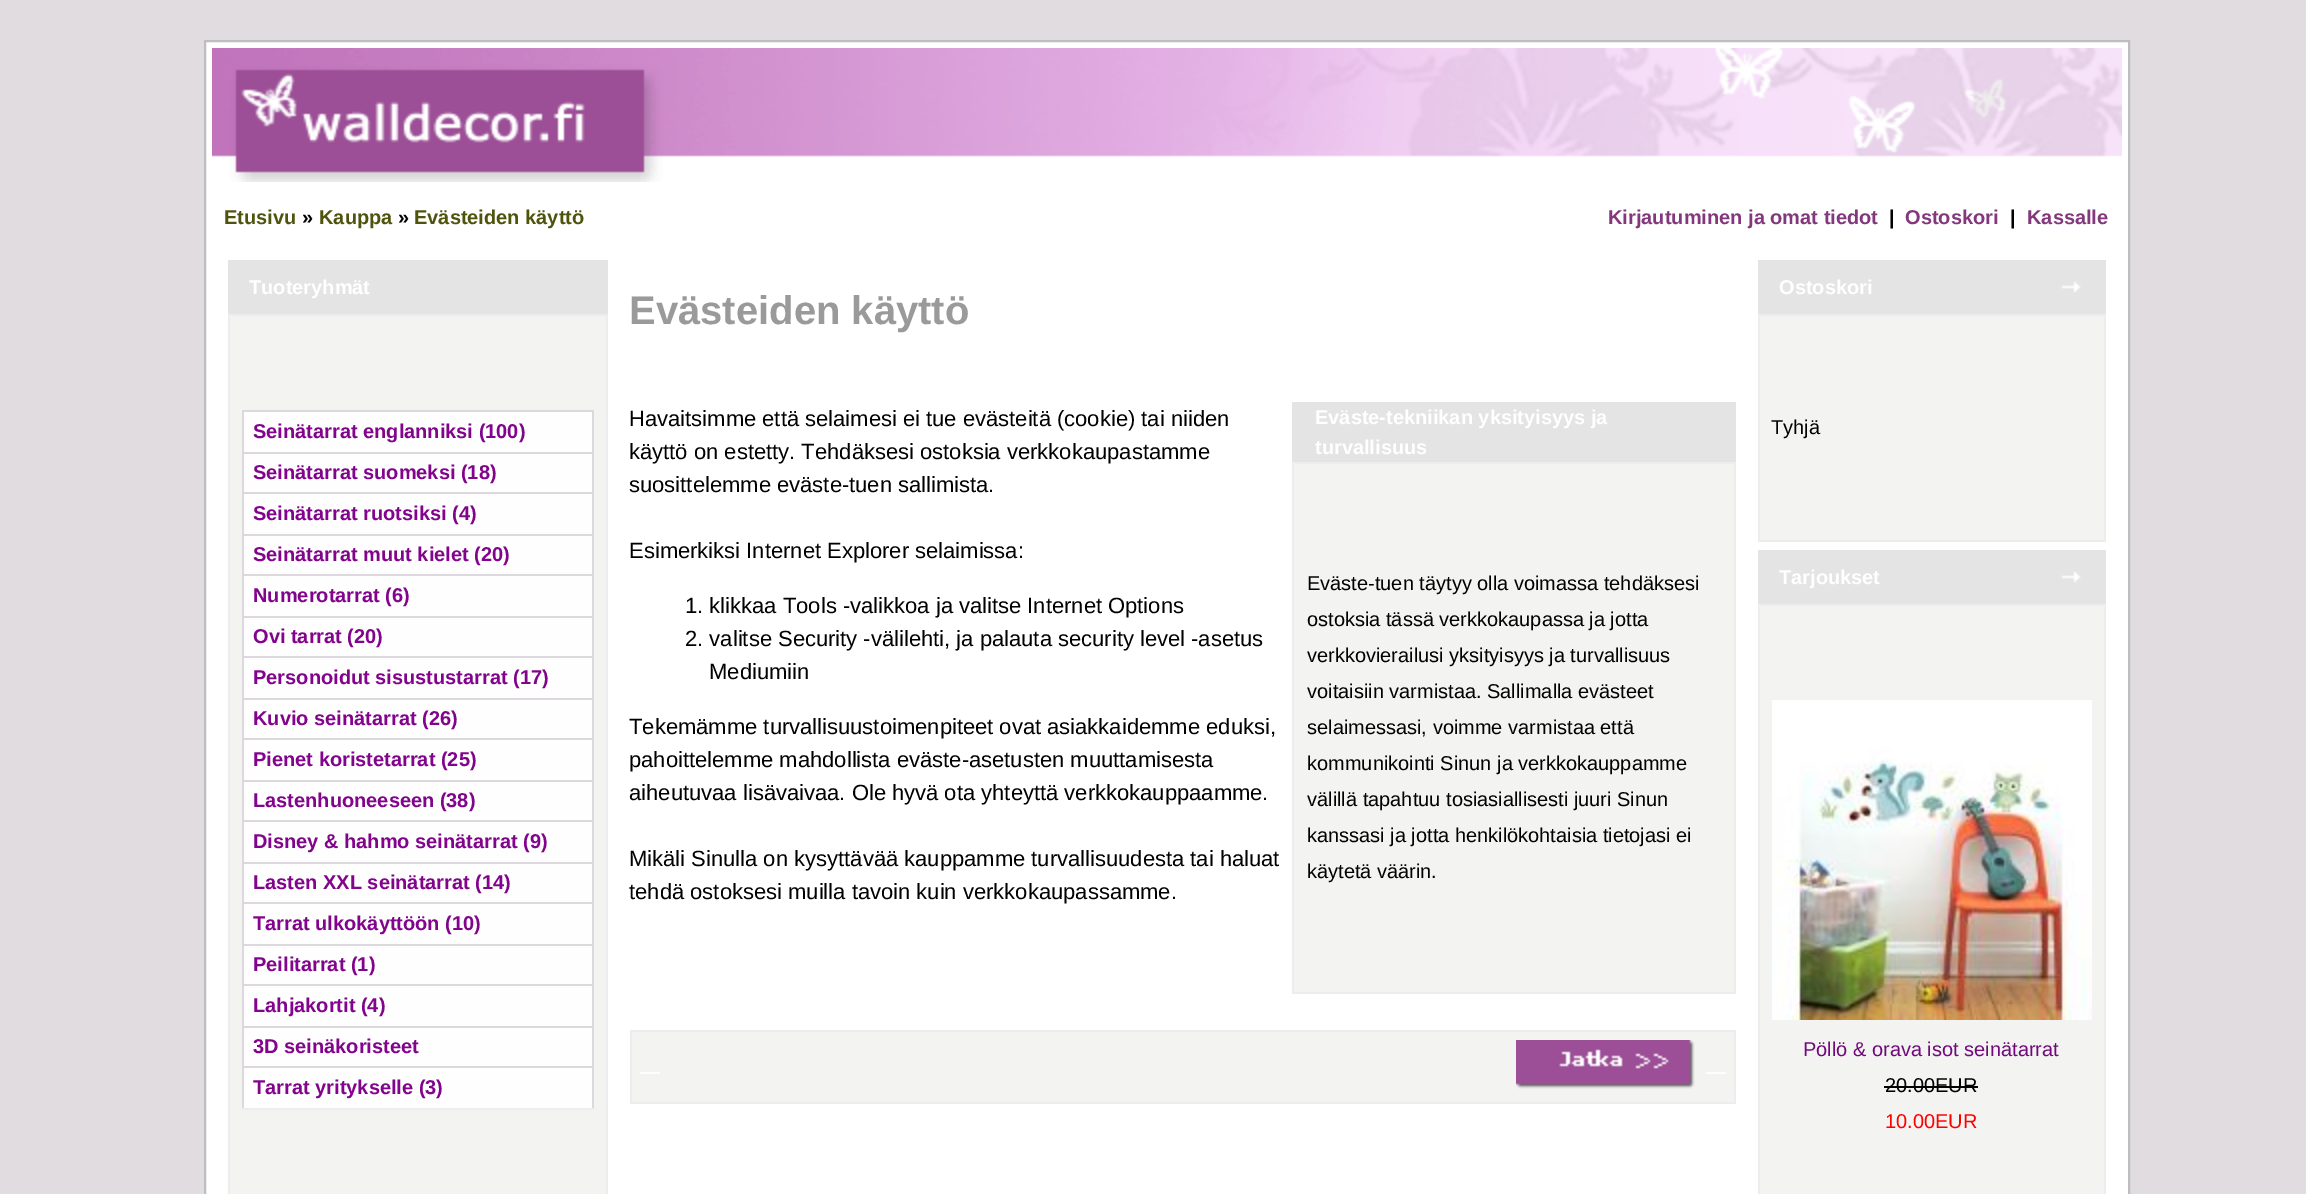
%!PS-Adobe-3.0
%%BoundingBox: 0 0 2306 1194
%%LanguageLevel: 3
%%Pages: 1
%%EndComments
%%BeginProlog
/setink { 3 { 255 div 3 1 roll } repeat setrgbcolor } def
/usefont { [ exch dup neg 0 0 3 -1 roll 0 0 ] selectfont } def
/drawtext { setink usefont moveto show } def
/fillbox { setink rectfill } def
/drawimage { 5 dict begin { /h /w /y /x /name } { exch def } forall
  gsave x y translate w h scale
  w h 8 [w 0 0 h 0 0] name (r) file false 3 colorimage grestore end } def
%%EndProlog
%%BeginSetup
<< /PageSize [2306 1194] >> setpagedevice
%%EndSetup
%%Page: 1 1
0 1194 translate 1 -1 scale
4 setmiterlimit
0 0 2306 1194 224 220 223 fillbox
255 255 255 setink
205 41 moveto 2129 41 lineto 2129 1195 lineto 205 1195 lineto closepath gsave fill grestore
190 190 190 setink
2 setlinewidth
stroke
(assets/img1.rgb) 212 48 1910 134 drawimage
(Etusivu) 224 224 /LiberationSans-Bold 20 79 84 13 drawtext
(») 302 224 /LiberationSans-Bold 20 0 0 0 drawtext
(Kauppa) 319 224 /LiberationSans-Bold 20 79 84 13 drawtext
(») 398 224 /LiberationSans-Bold 20 0 0 0 drawtext
(Evästeiden käyttö) 414 224 /LiberationSans-Bold 20 79 84 13 drawtext
(Kirjautuminen ja omat tiedot) 1608 224 /LiberationSans-Bold 20 131 56 125 drawtext
(|) 1889 224 /LiberationSans-Bold 20 0 0 0 drawtext
(Ostoskori) 1905 224 /LiberationSans-Bold 20 131 56 125 drawtext
(|) 2010 224 /LiberationSans-Bold 20 0 0 0 drawtext
(Kassalle) 2027 224 /LiberationSans-Bold 20 131 56 125 drawtext
228 260 380 54 228 228 228 fillbox
(Tuoteryhmät) 249 294 /LiberationSans-Bold 20 255 255 255 drawtext
228 314 380 880 237 237 237 fillbox
230 316 376 878 243 243 242 fillbox
242 1108 352 2 237 237 237 fillbox
244 412 348 40 254 254 254 fillbox
242 410 352 2 221 216 221 fillbox
592 410 2 42 221 216 221 fillbox
242 410 2 42 221 216 221 fillbox
(Seinätarrat englanniksi \(100\)) 253 438 /LiberationSans-Bold 20 130 4 141 drawtext
244 454 348 38 254 254 254 fillbox
242 452 352 2 221 216 221 fillbox
592 452 2 40 221 216 221 fillbox
242 452 2 40 221 216 221 fillbox
(Seinätarrat suomeksi \(18\)) 253 479 /LiberationSans-Bold 20 130 4 141 drawtext
244 494 348 40 254 254 254 fillbox
242 492 352 2 221 216 221 fillbox
592 492 2 42 221 216 221 fillbox
242 492 2 42 221 216 221 fillbox
(Seinätarrat ruotsiksi \(4\)) 253 520 /LiberationSans-Bold 20 130 4 141 drawtext
244 536 348 38 254 254 254 fillbox
242 534 352 2 221 216 221 fillbox
592 534 2 40 221 216 221 fillbox
242 534 2 40 221 216 221 fillbox
(Seinätarrat muut kielet \(20\)) 253 561 /LiberationSans-Bold 20 130 4 141 drawtext
244 576 348 40 254 254 254 fillbox
242 574 352 2 221 216 221 fillbox
592 574 2 42 221 216 221 fillbox
242 574 2 42 221 216 221 fillbox
(Numerotarrat \(6\)) 253 602 /LiberationSans-Bold 20 130 4 141 drawtext
244 618 348 38 254 254 254 fillbox
242 616 352 2 221 216 221 fillbox
592 616 2 40 221 216 221 fillbox
242 616 2 40 221 216 221 fillbox
(Ovi tarrat \(20\)) 253 643 /LiberationSans-Bold 20 130 4 141 drawtext
244 658 348 40 254 254 254 fillbox
242 656 352 2 221 216 221 fillbox
592 656 2 42 221 216 221 fillbox
242 656 2 42 221 216 221 fillbox
(Personoidut sisustustarrat \(17\)) 253 684 /LiberationSans-Bold 20 130 4 141 drawtext
244 700 348 38 254 254 254 fillbox
242 698 352 2 221 216 221 fillbox
592 698 2 40 221 216 221 fillbox
242 698 2 40 221 216 221 fillbox
(Kuvio seinätarrat \(26\)) 253 725 /LiberationSans-Bold 20 130 4 141 drawtext
244 740 348 40 254 254 254 fillbox
242 738 352 2 221 216 221 fillbox
592 738 2 42 221 216 221 fillbox
242 738 2 42 221 216 221 fillbox
(Pienet koristetarrat \(25\)) 253 766 /LiberationSans-Bold 20 130 4 141 drawtext
244 782 348 38 254 254 254 fillbox
242 780 352 2 221 216 221 fillbox
592 780 2 40 221 216 221 fillbox
242 780 2 40 221 216 221 fillbox
(Lastenhuoneeseen \(38\)) 253 807 /LiberationSans-Bold 20 130 4 141 drawtext
244 822 348 40 254 254 254 fillbox
242 820 352 2 221 216 221 fillbox
592 820 2 42 221 216 221 fillbox
242 820 2 42 221 216 221 fillbox
(Disney & hahmo seinätarrat \(9\)) 253 848 /LiberationSans-Bold 20 130 4 141 drawtext
244 864 348 38 254 254 254 fillbox
242 862 352 2 221 216 221 fillbox
592 862 2 40 221 216 221 fillbox
242 862 2 40 221 216 221 fillbox
(Lasten XXL seinätarrat \(14\)) 253 889 /LiberationSans-Bold 20 130 4 141 drawtext
244 904 348 40 254 254 254 fillbox
242 902 352 2 221 216 221 fillbox
592 902 2 42 221 216 221 fillbox
242 902 2 42 221 216 221 fillbox
(Tarrat ulkokäyttöön \(10\)) 253 930 /LiberationSans-Bold 20 130 4 141 drawtext
244 946 348 38 254 254 254 fillbox
242 944 352 2 221 216 221 fillbox
592 944 2 40 221 216 221 fillbox
242 944 2 40 221 216 221 fillbox
(Peilitarrat \(1\)) 253 971 /LiberationSans-Bold 20 130 4 141 drawtext
244 986 348 40 254 254 254 fillbox
242 984 352 2 221 216 221 fillbox
592 984 2 42 221 216 221 fillbox
242 984 2 42 221 216 221 fillbox
(Lahjakortit \(4\)) 253 1012 /LiberationSans-Bold 20 130 4 141 drawtext
244 1028 348 38 254 254 254 fillbox
242 1026 352 2 221 216 221 fillbox
592 1026 2 40 221 216 221 fillbox
242 1026 2 40 221 216 221 fillbox
(3D seinäkoristeet) 253 1053 /LiberationSans-Bold 20 130 4 141 drawtext
244 1068 348 40 254 254 254 fillbox
242 1066 352 2 221 216 221 fillbox
592 1066 2 42 221 216 221 fillbox
242 1066 2 42 221 216 221 fillbox
(Tarrat yritykselle \(3\)) 253 1094 /LiberationSans-Bold 20 130 4 141 drawtext
(Evästeiden käyttö) 629 324 /LiberationSans-Bold 40 154 154 154 drawtext
(Havaitsimme että selaimesi ei tue evästeitä \(cookie\) tai niiden) 629 426 /LiberationSans-Regular 22 0 0 0 drawtext
1292 402 444 60 228 228 228 fillbox
(Eväste-tekniikan yksityisyys ja) 1315 424 /LiberationSans-Bold 20 255 255 255 drawtext
(turvallisuus) 1315 454 /LiberationSans-Bold 20 255 255 255 drawtext
1292 462 444 532 237 237 237 fillbox
1294 464 440 528 243 243 242 fillbox
(Eväste-tuen täytyy olla voimassa tehdäksesi) 1307 590 /LiberationSans-Regular 20 0 0 0 drawtext
(ostoksia tässä verkkokaupassa ja jotta) 1307 626 /LiberationSans-Regular 20 0 0 0 drawtext
(verkkovierailusi yksityisyys ja turvallisuus) 1307 662 /LiberationSans-Regular 20 0 0 0 drawtext
(voitaisiin varmistaa. Sallimalla evästeet) 1307 698 /LiberationSans-Regular 20 0 0 0 drawtext
(selaimessasi, voimme varmistaa että) 1307 734 /LiberationSans-Regular 20 0 0 0 drawtext
(kommunikointi Sinun ja verkkokauppamme) 1307 770 /LiberationSans-Regular 20 0 0 0 drawtext
(välillä tapahtuu tosiasiallisesti juuri Sinun) 1307 806 /LiberationSans-Regular 20 0 0 0 drawtext
(kanssasi ja jotta henkilökohtaisia tietojasi ei) 1307 842 /LiberationSans-Regular 20 0 0 0 drawtext
(käytetä väärin.) 1307 878 /LiberationSans-Regular 20 0 0 0 drawtext
(käyttö on estetty. Tehdäksesi ostoksia verkkokaupastamme) 629 459 /LiberationSans-Regular 22 0 0 0 drawtext
(suosittelemme eväste-tuen sallimista.) 629 492 /LiberationSans-Regular 22 0 0 0 drawtext
(Esimerkiksi Internet Explorer selaimissa:) 629 558 /LiberationSans-Regular 22 0 0 0 drawtext
(1. klikkaa Tools -valikkoa ja valitse Internet Options) 685 613 /LiberationSans-Regular 22 0 0 0 drawtext
(2. valitse Security -välilehti, ja palauta security level -asetus) 685 646 /LiberationSans-Regular 22 0 0 0 drawtext
(Mediumiin) 709 679 /LiberationSans-Regular 22 0 0 0 drawtext
(Tekemämme turvallisuustoimenpiteet ovat asiakkaidemme eduksi,) 629 734 /LiberationSans-Regular 22 0 0 0 drawtext
(pahoittelemme mahdollista eväste-asetusten muuttamisesta) 629 767 /LiberationSans-Regular 22 0 0 0 drawtext
(aiheutuvaa lisävaivaa. Ole hyvä ota yhteyttä verkkokauppaamme.) 629 800 /LiberationSans-Regular 22 0 0 0 drawtext
(Mikäli Sinulla on kysyttävää kauppamme turvallisuudesta tai haluat) 629 866 /LiberationSans-Regular 22 0 0 0 drawtext
(tehdä ostoksesi muilla tavoin kuin verkkokaupassamme.) 629 899 /LiberationSans-Regular 22 0 0 0 drawtext
630 1030 1106 74 237 237 237 fillbox
632 1032 1102 70 243 243 242 fillbox
640 1072 20 2 252 254 252 fillbox
(assets/img2.rgb) 1516 1040 179 49 drawimage
1706 1072 20 2 252 254 252 fillbox
1758 260 348 54 228 228 228 fillbox
(Ostoskori) 1779 294 /LiberationSans-Bold 20 255 255 255 drawtext
(assets/img3.rgb) 2061 281 20 12 drawimage
1758 314 348 228 237 237 237 fillbox
1760 316 344 224 243 243 242 fillbox
(Tyhjä) 1771 434 /LiberationSans-Regular 20 0 0 0 drawtext
1758 550 348 54 228 228 228 fillbox
(Tarjoukset) 1779 584 /LiberationSans-Bold 20 255 255 255 drawtext
(assets/img3.rgb) 2061 571 20 12 drawimage
1758 604 348 590 237 237 237 fillbox
1760 606 344 588 243 243 242 fillbox
(assets/img4.rgb) 1772 700 320 320 drawimage
(Pöllö & orava isot seinätarrat) 1803 1056 /LiberationSans-Regular 20 113 8 123 drawtext
(20.00EUR) 1885 1092 /LiberationSans-Regular 20 0 0 0 drawtext
1884 1086 94 2 0 0 0 fillbox
(10.00EUR) 1885 1128 /LiberationSans-Regular 20 255 0 0 drawtext
showpage
%%EOF
